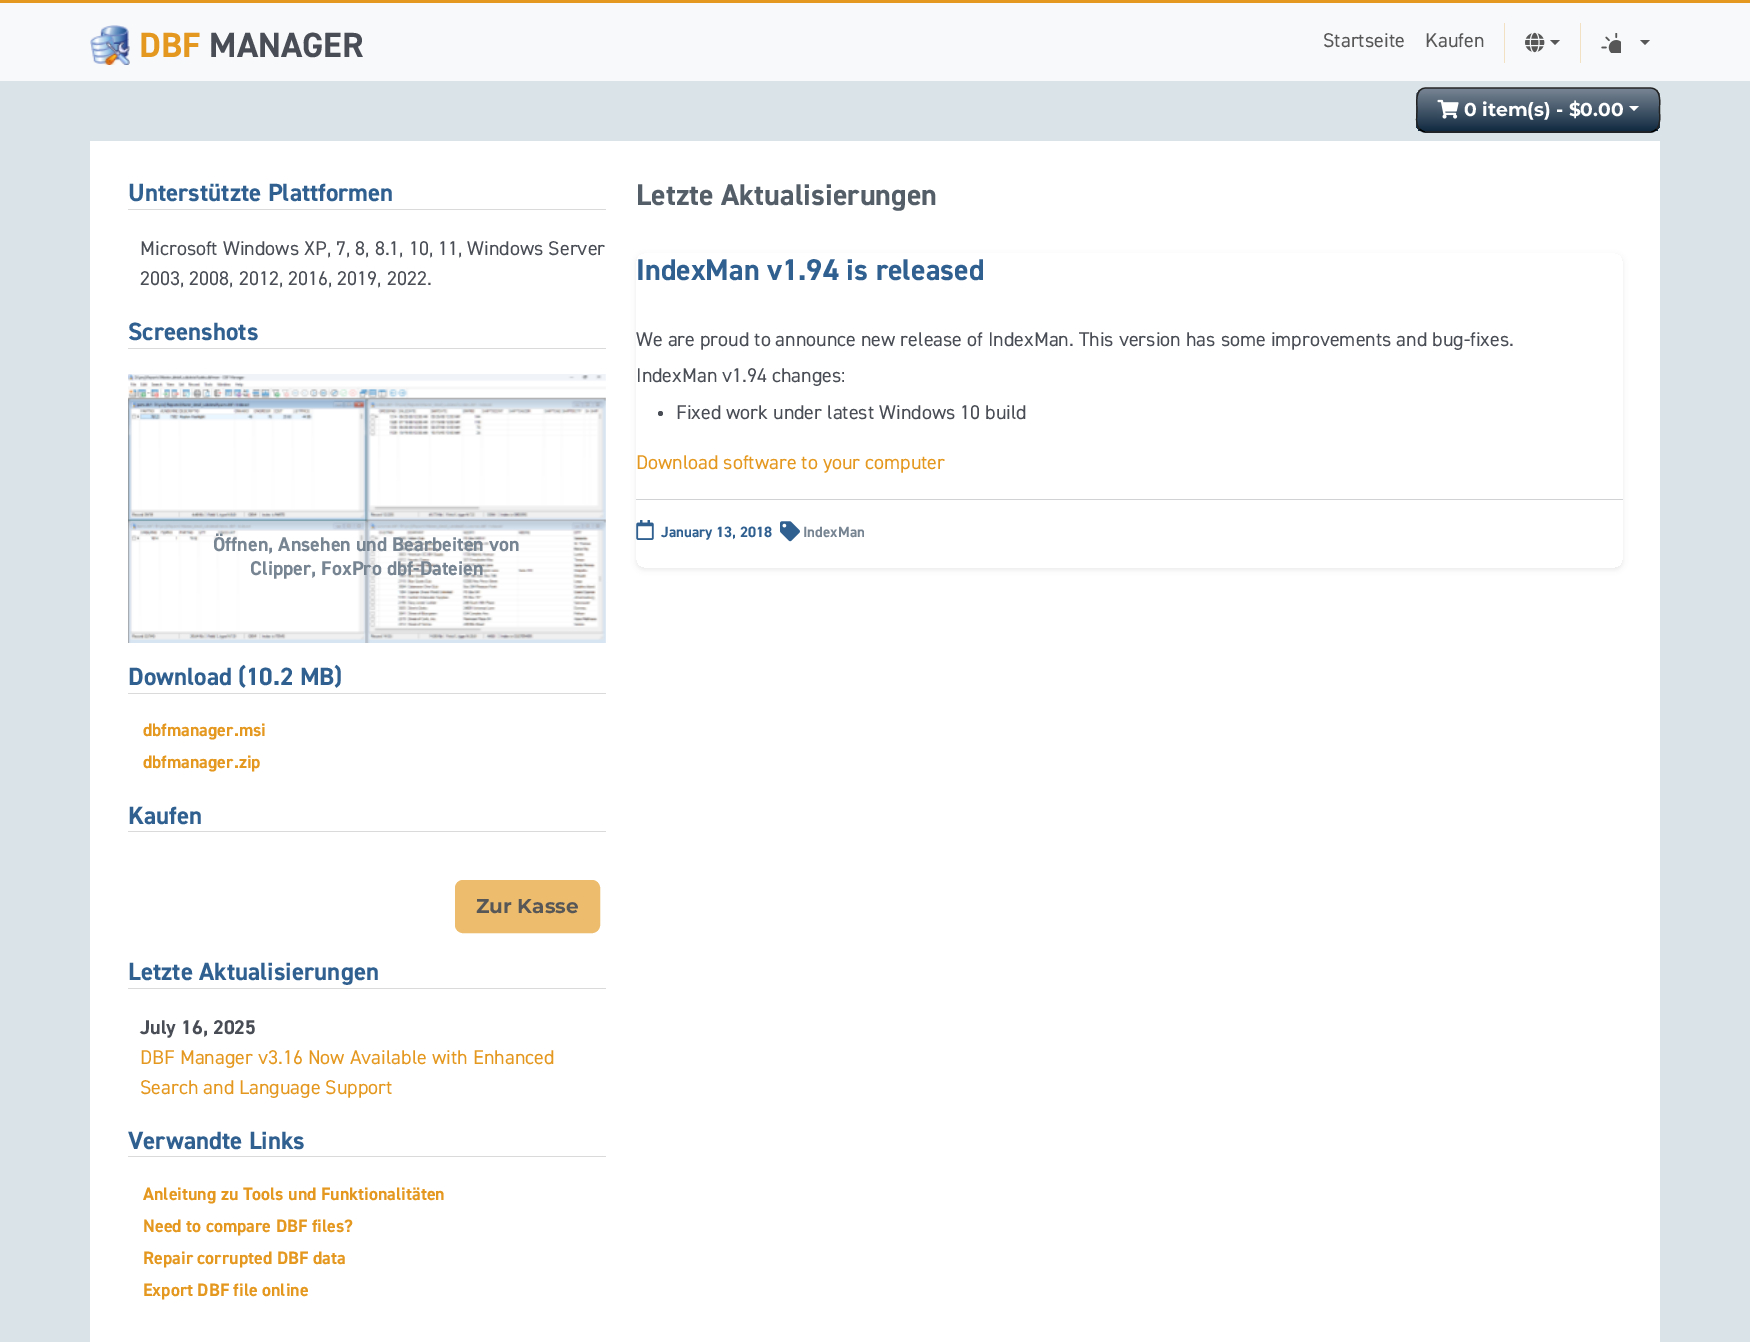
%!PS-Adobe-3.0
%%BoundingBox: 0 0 1750 1342
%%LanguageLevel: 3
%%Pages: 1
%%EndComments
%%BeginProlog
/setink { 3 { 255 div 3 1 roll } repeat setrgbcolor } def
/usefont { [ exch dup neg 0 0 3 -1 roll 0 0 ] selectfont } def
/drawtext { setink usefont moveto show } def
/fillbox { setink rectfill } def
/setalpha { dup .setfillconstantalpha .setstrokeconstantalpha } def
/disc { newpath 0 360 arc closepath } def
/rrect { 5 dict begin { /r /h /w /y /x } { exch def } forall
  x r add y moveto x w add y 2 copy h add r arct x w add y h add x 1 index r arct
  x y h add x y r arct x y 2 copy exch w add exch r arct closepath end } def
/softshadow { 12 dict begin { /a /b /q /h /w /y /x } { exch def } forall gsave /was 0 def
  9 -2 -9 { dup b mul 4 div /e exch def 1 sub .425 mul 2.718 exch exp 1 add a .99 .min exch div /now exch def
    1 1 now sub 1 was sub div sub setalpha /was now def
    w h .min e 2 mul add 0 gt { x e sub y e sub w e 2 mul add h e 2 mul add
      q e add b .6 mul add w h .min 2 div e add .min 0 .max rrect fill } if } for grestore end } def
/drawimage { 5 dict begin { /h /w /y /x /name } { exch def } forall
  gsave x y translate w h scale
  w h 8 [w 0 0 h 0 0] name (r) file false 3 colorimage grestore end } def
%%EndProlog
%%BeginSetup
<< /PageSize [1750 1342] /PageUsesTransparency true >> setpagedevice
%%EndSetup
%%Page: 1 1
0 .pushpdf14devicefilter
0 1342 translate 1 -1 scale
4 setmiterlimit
0 0 1750 1342 218 227 231 fillbox
0 3 1750 78 248 249 250 fillbox
0 0 1750 3 228 152 31 fillbox
(assets/img1.rgb) 90 25 40 40 drawimage
(DBF) 139 57 /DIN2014-Bold 35 228 152 31 drawtext
(MANAGER) 209 57 /DIN2014-Bold 35 73 77 85 drawtext
(Startseite) 1323 47 /DIN2014-Regular 20 87 87 88 drawtext
(Kaufen) 1425 47 /DIN2014-Regular 20 87 87 88 drawtext
1504 23 1 40 243 225 195 fillbox
(assets/img2.rgb) 1525 32 20 21 drawimage
87 87 88 setink
1550 40 moveto 1560 40 lineto 1555 45 lineto closepath fill
1580 23 1 40 243 225 195 fillbox
(assets/img3.rgb) 1601 33 20 20 drawimage
87 87 88 setink
1640 40 moveto 1650 40 lineto 1645 45 lineto closepath fill
119 132 146 setink
1416 88 244 45 10 rrect fill
gsave
1416 88 244 45 10 rrect clip newpath
gsave 1416 89 moveto 1660 89 lineto 1660 131 lineto 1416 131 lineto closepath clip newpath
<< /ShadingType 2 /ColorSpace /DeviceRGB /Coords [1538 89 1538 131] /Extend [true true] /Function << /FunctionType 2 /Domain [0 1] /C0 [0.467 0.518 0.573] /C1 [0.067 0.165 0.255] /N 1 >> >> shfill grestore
grestore
0 0 0 setink
1.2 setlinewidth
1656.5 129 moveto 1655 131 1652.5 132 1650 132 curveto 1426 132 lineto 1424 132 1421.5 131 1419.5 129 curveto stroke
34 34 34 setink
1419.5 129 moveto 1415 124.5 1417 115.5 1417 110 curveto 1417 102.5 1414.5 88 1426 88 curveto 1650 88 lineto 1662 88 1659.5 102.5 1659.5 110 curveto 1659.5 115.5 1661 124.5 1656.5 129 curveto stroke
(assets/img4.rgb) 1437 99 22 20 drawimage
(0 item\(s\) - $0.00) 1464 116 /Montserrat-Bold 18.75 255 255 255 drawtext
1629 106 moveto 1639 106 lineto 1634 111 lineto closepath fill
90 141 1570 1201 255 255 255 fillbox
128 209 478 1 218 218 218 fillbox
(Unterstützte Plattformen) 128 201 /DIN2014-Bold 25 48 96 144 drawtext
(Microsoft Windows XP, 7, 8, 8.1, 10, 11, Windows Server) 140 255 /DIN2014-Regular 20 73 77 85 drawtext
(2003, 2008, 2012, 2016, 2019, 2022.) 140 285 /DIN2014-Regular 20 73 77 85 drawtext
128 348 478 1 218 218 218 fillbox
(Screenshots) 128 340 /DIN2014-Bold 25 48 96 144 drawtext
(assets/img5.rgb) 128 374 478 269 drawimage
(Öffnen, Ansehen und Bearbeiten von) 213 551 /DIN2014-Bold 20 119 132 146 drawtext
(Clipper, FoxPro dbf-Dateien) 250 575 /DIN2014-Bold 20 119 132 146 drawtext
128 693 478 1 218 218 218 fillbox
(Download \(10.2 MB\)) 128 685 /DIN2014-Bold 25 48 96 144 drawtext
(dbfmanager.msi) 143 736 /DIN2014-Bold 18 228 152 31 drawtext
(dbfmanager.zip) 143 768 /DIN2014-Bold 18 228 152 31 drawtext
128 831 478 1 218 218 218 fillbox
(Kaufen) 128 824 /DIN2014-Bold 25 48 96 144 drawtext
237 188 109 setink
455.5 880.5 144 52 7.5 rrect gsave fill grestore
1 setlinewidth
stroke
(Zur Kasse) 476 913 /Montserrat-Bold 20 87 87 88 drawtext
128 988 478 1 218 218 218 fillbox
(Letzte Aktualisierungen) 128 980 /DIN2014-Bold 25 48 96 144 drawtext
(July 16, 2025) 140 1034 /DIN2014-Bold 20 73 77 85 drawtext
(DBF Manager v3.16 Now Available with Enhanced) 140 1064 /DIN2014-Regular 20 228 152 31 drawtext
(Search and Language Support) 140 1094 /DIN2014-Regular 20 228 152 31 drawtext
128 1156 478 1 218 218 218 fillbox
(Verwandte Links) 128 1149 /DIN2014-Bold 25 48 96 144 drawtext
(Anleitung zu Tools und Funktionalitäten) 143 1200 /DIN2014-Bold 18 228 152 31 drawtext
(Need to compare DBF files?) 143 1232 /DIN2014-Bold 18 228 152 31 drawtext
(Repair corrupted DBF data) 143 1264 /DIN2014-Bold 18 228 152 31 drawtext
(Export DBF file online) 143 1296 /DIN2014-Bold 18 228 152 31 drawtext
(Letzte Aktualisierungen) 636 205 /DIN2014-Bold 30 84 94 105 drawtext
gsave
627 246 moveto 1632 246 lineto 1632 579 lineto 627 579 lineto closepath 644 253 moveto 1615 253 lineto 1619.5 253 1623 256.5 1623 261 curveto 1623 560 lineto 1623 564.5 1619.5 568 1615 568 curveto 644 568 lineto 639.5 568 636 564.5 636 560 curveto 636 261 lineto 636 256.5 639.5 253 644 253 curveto closepath eoclip newpath
0 0 0 setink
636 255 987 315 8 2.5 0.07 softshadow
grestore
(IndexMan v1.94 is released) 636 280 /DIN2014-Bold 30 48 96 144 drawtext
(We are proud to announce new release of IndexMan. This version has some improvements and bug-fixes.) 636 346 /DIN2014-Regular 20 73 77 85 drawtext
(IndexMan v1.94 changes:) 636 382 /DIN2014-Regular 20 73 77 85 drawtext
660.5 413.5 2.5 disc fill
(Fixed work under latest Windows 10 build) 676 419 /DIN2014-Regular 20 73 77 85 drawtext
(Download software to your computer) 636 469 /DIN2014-Regular 20 228 152 31 drawtext
0.25 setalpha
636 499 987 1 73 77 85 fillbox
1 setalpha
(assets/img6.rgb) 636 520 18 20 drawimage
(January 13, 2018) 661 537 /DIN2014-Bold 15 48 96 144 drawtext
(assets/img7.rgb) 780 521 20 21 drawimage
(IndexMan) 803 537 /DIN2014-Bold 15 119 132 146 drawtext
.poppdf14devicefilter showpage
%%EOF
